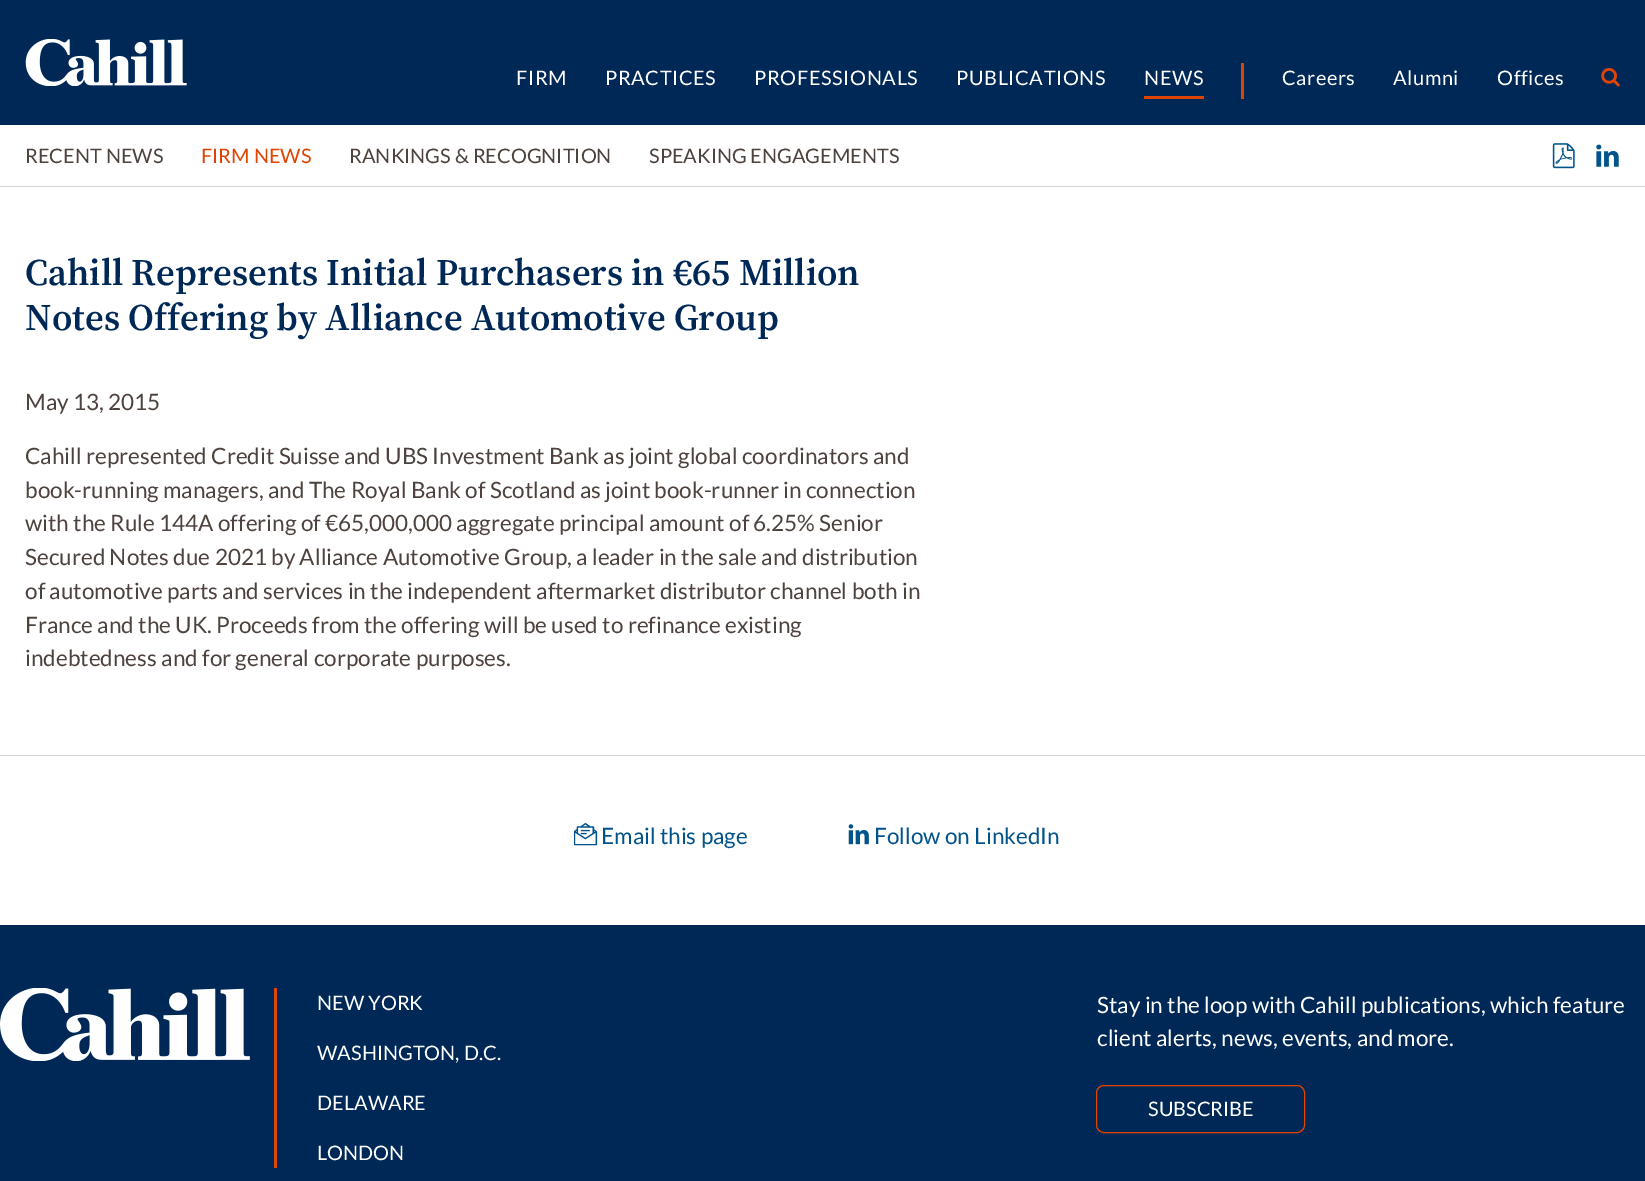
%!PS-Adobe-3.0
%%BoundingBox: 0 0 1645 1181
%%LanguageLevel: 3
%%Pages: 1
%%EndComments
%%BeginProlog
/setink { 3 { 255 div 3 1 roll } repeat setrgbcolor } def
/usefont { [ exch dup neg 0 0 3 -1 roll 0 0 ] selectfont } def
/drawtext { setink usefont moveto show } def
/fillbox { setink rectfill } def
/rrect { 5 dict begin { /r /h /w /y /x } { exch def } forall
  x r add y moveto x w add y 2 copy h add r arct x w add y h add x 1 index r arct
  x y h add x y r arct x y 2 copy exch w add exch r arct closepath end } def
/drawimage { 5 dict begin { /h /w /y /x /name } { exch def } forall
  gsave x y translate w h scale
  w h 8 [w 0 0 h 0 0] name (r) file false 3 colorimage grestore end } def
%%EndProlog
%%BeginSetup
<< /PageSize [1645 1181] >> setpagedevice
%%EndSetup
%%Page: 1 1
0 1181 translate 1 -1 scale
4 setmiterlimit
0 0 1645 1181 255 255 255 fillbox
0 0 1645 125 0 40 87 fillbox
(assets/img1.rgb) 25 39 162 47 drawimage
/Lato-Regular 20 usefont
255 255 255 setink
516 85 moveto 0.6 0 (FIRM) ashow
605 85 moveto 0.6 0 (PRACTICES) ashow
754 85 moveto 0.6 0 (PROFESSIONALS) ashow
956 85 moveto 0.6 0 (PUBLICATIONS) ashow
1144 96 60 3 224 68 3 fillbox
255 255 255 setink
1144 85 moveto 0.6 0 (NEWS) ashow
1241 63 3 36 224 68 3 fillbox
255 255 255 setink
1282 85 moveto 0.6 0 (Careers) ashow
1393 85 moveto 0.6 0 (Alumni) ashow
1497 85 moveto 0.6 0 (Offices) ashow
(assets/img2.rgb) 1601 68 19 19 drawimage
0 186 1645 1 217 210 207 fillbox
(RECENT NEWS) 25 163 /Lato-Regular 20 77 66 61 drawtext
(FIRM NEWS) 201 163 /Lato-Regular 20 224 68 3 drawtext
(RANKINGS & RECOGNITION) 349 163 /Lato-Regular 20 77 66 61 drawtext
(SPEAKING ENGAGEMENTS) 649 163 /Lato-Regular 20 77 66 61 drawtext
(assets/img3.rgb) 1552 143 23 26 drawimage
(assets/img4.rgb) 1596 144 23 23 drawimage
(Cahill Represents Initial Purchasers in €65 Million) 25 285 /SourceSerif4-SemiBold 37.5 0 40 87 drawtext
(Notes Offering by Alliance Automotive Group) 25 330 /SourceSerif4-SemiBold 37.5 0 40 87 drawtext
(May 13, 2015) 25 410 /Lato-Regular 22.5 77 66 61 drawtext
(Cahill represented Credit Suisse and UBS Investment Bank as joint global coordinators and) 25 464 /Lato-Regular 22.5 77 66 61 drawtext
(book-running managers, and The Royal Bank of Scotland as joint book-runner in connection) 25 498 /Lato-Regular 22.5 77 66 61 drawtext
(with the Rule 144A offering of €65,000,000 aggregate principal amount of 6.25% Senior) 25 531 /Lato-Regular 22.5 77 66 61 drawtext
(Secured Notes due 2021 by Alliance Automotive Group, a leader in the sale and distribution) 25 565 /Lato-Regular 22.5 77 66 61 drawtext
(of automotive parts and services in the independent aftermarket distributor channel both in) 25 599 /Lato-Regular 22.5 77 66 61 drawtext
(France and the UK. Proceeds from the offering will be used to refinance existing) 25 633 /Lato-Regular 22.5 77 66 61 drawtext
(indebtedness and for general corporate purposes.) 25 666 /Lato-Regular 22.5 77 66 61 drawtext
0 755 1645 1 217 210 207 fillbox
(assets/img5.rgb) 573 823 25 23 drawimage
(Email this page) 601 844 /Lato-Regular 22.5 0 83 139 drawtext
(assets/img6.rgb) 848 824 21 21 drawimage
(Follow on LinkedIn) 874 844 /Lato-Regular 22.5 0 83 139 drawtext
0 925 1645 256 0 40 87 fillbox
(assets/img7.rgb) 0 988 250 73 drawimage
274 988 3 180 224 68 3 fillbox
(NEW YORK) 317 1010 /Lato-Regular 20 255 255 255 drawtext
(WASHINGTON, D.C.) 317 1060 /Lato-Regular 20 255 255 255 drawtext
(DELAWARE) 317 1110 /Lato-Regular 20 255 255 255 drawtext
(LONDON) 317 1160 /Lato-Regular 20 255 255 255 drawtext
(Stay in the loop with Cahill publications, which feature) 1097 1013 /Lato-Regular 22.5 255 255 255 drawtext
(client alerts, news, events, and more.) 1097 1046 /Lato-Regular 22.5 255 255 255 drawtext
224 68 3 setink
1096.5 1085.5 208 47 7.5 rrect stroke
(SUBSCRIBE) 1148 1116 /Lato-Regular 20 255 255 255 drawtext
showpage
%%EOF
